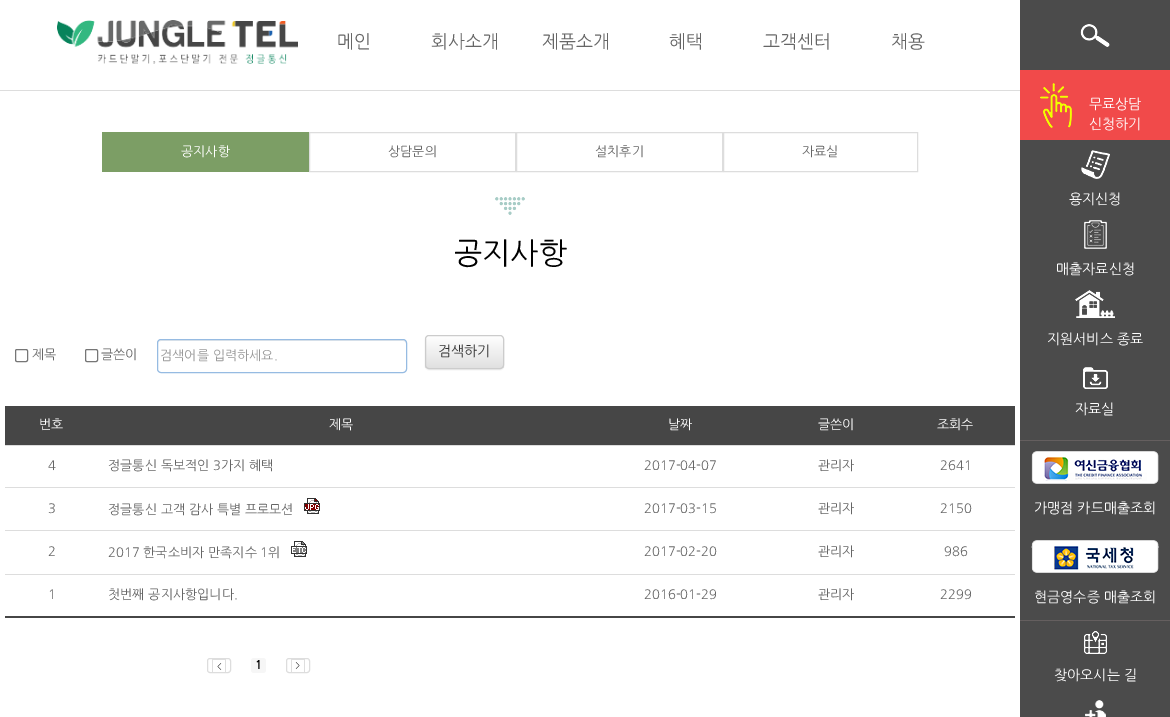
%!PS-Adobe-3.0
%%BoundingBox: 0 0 1170 717
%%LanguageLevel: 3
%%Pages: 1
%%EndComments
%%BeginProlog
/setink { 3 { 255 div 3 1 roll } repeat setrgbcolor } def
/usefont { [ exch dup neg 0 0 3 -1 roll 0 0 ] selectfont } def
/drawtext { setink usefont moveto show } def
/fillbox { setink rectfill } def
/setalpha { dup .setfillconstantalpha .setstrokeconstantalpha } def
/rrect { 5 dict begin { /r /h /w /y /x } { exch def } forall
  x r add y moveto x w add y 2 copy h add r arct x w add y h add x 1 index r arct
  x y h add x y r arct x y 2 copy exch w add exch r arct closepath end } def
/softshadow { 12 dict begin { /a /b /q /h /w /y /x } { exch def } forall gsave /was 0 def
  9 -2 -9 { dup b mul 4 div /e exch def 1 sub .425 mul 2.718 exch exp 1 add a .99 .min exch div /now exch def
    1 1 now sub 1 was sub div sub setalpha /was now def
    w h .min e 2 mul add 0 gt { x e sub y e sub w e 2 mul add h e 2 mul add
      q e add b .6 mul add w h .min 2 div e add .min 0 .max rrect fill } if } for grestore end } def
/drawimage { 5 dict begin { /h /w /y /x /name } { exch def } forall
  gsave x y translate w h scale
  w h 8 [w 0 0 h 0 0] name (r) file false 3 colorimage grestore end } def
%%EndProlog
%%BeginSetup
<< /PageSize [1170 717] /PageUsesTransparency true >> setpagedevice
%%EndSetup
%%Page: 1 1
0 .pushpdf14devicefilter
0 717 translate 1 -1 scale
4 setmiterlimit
0 0 1170 717 255 255 255 fillbox
0 90 1020 1 221 221 221 fillbox
(assets/img1.rgb) 57 20 241 44 drawimage
(메인) 337 48 /NanumGothic-Regular 18 102 102 102 drawtext
(회사소개) 431 48 /NanumGothic-Regular 18 102 102 102 drawtext
(제품소개) 542 48 /NanumGothic-Regular 18 102 102 102 drawtext
(혜택) 669 48 /NanumGothic-Regular 18 102 102 102 drawtext
(고객센터) 763 48 /NanumGothic-Regular 18 102 102 102 drawtext
(채용) 891 48 /NanumGothic-Regular 18 102 102 102 drawtext
102 132 207 40 124 158 101 fillbox
(공지사항) 181 156 /NanumGothic-Regular 13 255 255 255 drawtext
221 221 221 setink
309.5 132.5 206 39 rectstroke
(상담문의) 388 156 /NanumGothic-Regular 13 102 102 102 drawtext
221 221 221 setink
516.5 132.5 206 39 rectstroke
(설치후기) 595 156 /NanumGothic-Regular 13 102 102 102 drawtext
221 221 221 setink
723.5 132.5 194 39 rectstroke
(자료실) 802 156 /NanumGothic-Regular 13 102 102 102 drawtext
(assets/img2.rgb) 495 197 30 18 drawimage
(공지사항) 454 264 /NanumGothic-Regular 30 0 0 0 drawtext
118 118 118 setink
15.5 349.5 12 12 1.5 rrect stroke
(제목) 32 359 /NanumGothic-Regular 13 102 102 102 drawtext
118 118 118 setink
85.5 349.5 12 12 1.5 rrect stroke
(글쓴이) 101 359 /NanumGothic-Regular 13 102 102 102 drawtext
236 236 236 setink
161 341 moveto 403 341 lineto 405 341 406 342 406 344 curveto 406 342 405 340 403 340 curveto 161 340 lineto 159 340 158 342 158 344 curveto 158 342 159 341 161 341 curveto closepath fill
150 187 226 setink
157.5 339.5 249 33 3.5 rrect stroke
(검색어를 입력하세요.) 160 360 /NanumGothic-Regular 13 153 153 153 drawtext
0 0 0 setink
425 336 79 34 4 0.5 0.07 softshadow
gsave
425 335 79 34 4 rrect clip newpath
gsave 425 336 moveto 504 336 lineto 504 368 lineto 425 368 lineto closepath clip newpath
<< /ShadingType 2 /ColorSpace /DeviceRGB /Coords [465 336 465 368] /Extend [true true] /Function << /FunctionType 2 /Domain [0 1] /C0 [1 1 1] /C1 [0.878 0.878 0.878] /N 1 >> >> shfill grestore
grestore
204 204 204 setink
425.5 335.5 78 33 3.5 rrect stroke
(검색하기) 438 356 /NanumGothic-Regular 14 51 51 51 drawtext
5 616 1010 2 70 70 70 fillbox
5 406 1010 39 70 70 70 fillbox
(번호) 39 429 /NanumGothic-Regular 13 255 255 255 drawtext
(제목) 329 429 /NanumGothic-Regular 13 255 255 255 drawtext
(날짜) 668 429 /NanumGothic-Regular 13 255 255 255 drawtext
(글쓴이) 818 429 /NanumGothic-Regular 13 255 255 255 drawtext
(조회수) 937 429 /NanumGothic-Regular 13 255 255 255 drawtext
(4) 48 470 /NanumGothic-Regular 13 102 102 102 drawtext
(정글통신 독보적인 3가지 혜택) 108 470 /NanumGothic-Regular 13 102 102 102 drawtext
(2017-04-07) 644 470 /NanumGothic-Regular 13 102 102 102 drawtext
(관리자) 818 470 /NanumGothic-Regular 13 102 102 102 drawtext
5 445 1010 1 221 221 221 fillbox
(2641) 940 470 /NanumGothic-Regular 13 102 102 102 drawtext
(3) 48 513 /NanumGothic-Regular 13 102 102 102 drawtext
(정글통신 고객 감사 특별 프로모션) 108 514 /NanumGothic-Regular 13 102 102 102 drawtext
(assets/img3.rgb) 304 498 16 16 drawimage
(2017-03-15) 644 513 /NanumGothic-Regular 13 102 102 102 drawtext
(관리자) 818 513 /NanumGothic-Regular 13 102 102 102 drawtext
5 487 1010 1 221 221 221 fillbox
(2150) 940 513 /NanumGothic-Regular 13 102 102 102 drawtext
(2) 48 556 /NanumGothic-Regular 13 102 102 102 drawtext
(2017 한국소비자 만족지수 1위) 108 557 /NanumGothic-Regular 13 102 102 102 drawtext
(assets/img4.rgb) 291 541 16 16 drawimage
(2017-02-20) 644 556 /NanumGothic-Regular 13 102 102 102 drawtext
(관리자) 818 556 /NanumGothic-Regular 13 102 102 102 drawtext
5 530 1010 1 221 221 221 fillbox
(986) 944 556 /NanumGothic-Regular 13 102 102 102 drawtext
(1) 48 599 /NanumGothic-Regular 13 102 102 102 drawtext
(첫번째 공지사항입니다.) 108 599 /NanumGothic-Regular 13 102 102 102 drawtext
(2016-01-29) 644 599 /NanumGothic-Regular 13 102 102 102 drawtext
(관리자) 818 599 /NanumGothic-Regular 13 102 102 102 drawtext
5 574 1010 1 221 221 221 fillbox
(2299) 940 599 /NanumGothic-Regular 13 102 102 102 drawtext
221 221 221 setink
207.5 658.5 23 14 2.5 rrect stroke
(assets/img5.rgb) 212 659 14 13 drawimage
246 246 246 setink
251 658 15 15 3 rrect fill
(1) 255 669 /NanumGothic-Bold 12 0 0 0 drawtext
221 221 221 setink
286.5 658.5 23 14 2.5 rrect stroke
(assets/img6.rgb) 291 659 14 13 drawimage
1020 0 150 717 75 75 75 fillbox
(assets/img7.rgb) 1080 24 30 23 drawimage
1020 70 150 70 241 74 74 fillbox
(assets/img8.rgb) 1040 83 32 45 drawimage
(무료상담) 1089 109 /NanumGothic-Regular 14 255 255 255 drawtext
(신청하기) 1089 129 /NanumGothic-Regular 14 255 255 255 drawtext
(assets/img9.rgb) 1081 150 29 29 drawimage
(용지신청) 1069 204 /NanumGothic-Regular 14 255 255 255 drawtext
(assets/img10.rgb) 1084 220 23 29 drawimage
(매출자료신청) 1056 274 /NanumGothic-Regular 14 255 255 255 drawtext
(assets/img11.rgb) 1075 290 40 28 drawimage
(지원서비스 종료) 1047 344 /NanumGothic-Regular 14 255 255 255 drawtext
(assets/img12.rgb) 1083 367 25 22 drawimage
(자료실) 1075 414 /NanumGothic-Regular 14 255 255 255 drawtext
(assets/img13.rgb) 1031 451 128 33 drawimage
1020 440 150 1 101 95 95 fillbox
(가맹점 카드매출조회) 1034 513 /NanumGothic-Regular 14 255 255 255 drawtext
(assets/img14.rgb) 1031 540 128 33 drawimage
(현금영수증 매출조회) 1034 602 /NanumGothic-Regular 14 255 255 255 drawtext
(assets/img15.rgb) 1084 631 23 23 drawimage
1020 620 150 1 101 95 95 fillbox
(찾아오시는 길) 1054 680 /NanumGothic-Regular 14 255 255 255 drawtext
(assets/img16.rgb) 1085 700 21 17 drawimage
.poppdf14devicefilter showpage
%%EOF
